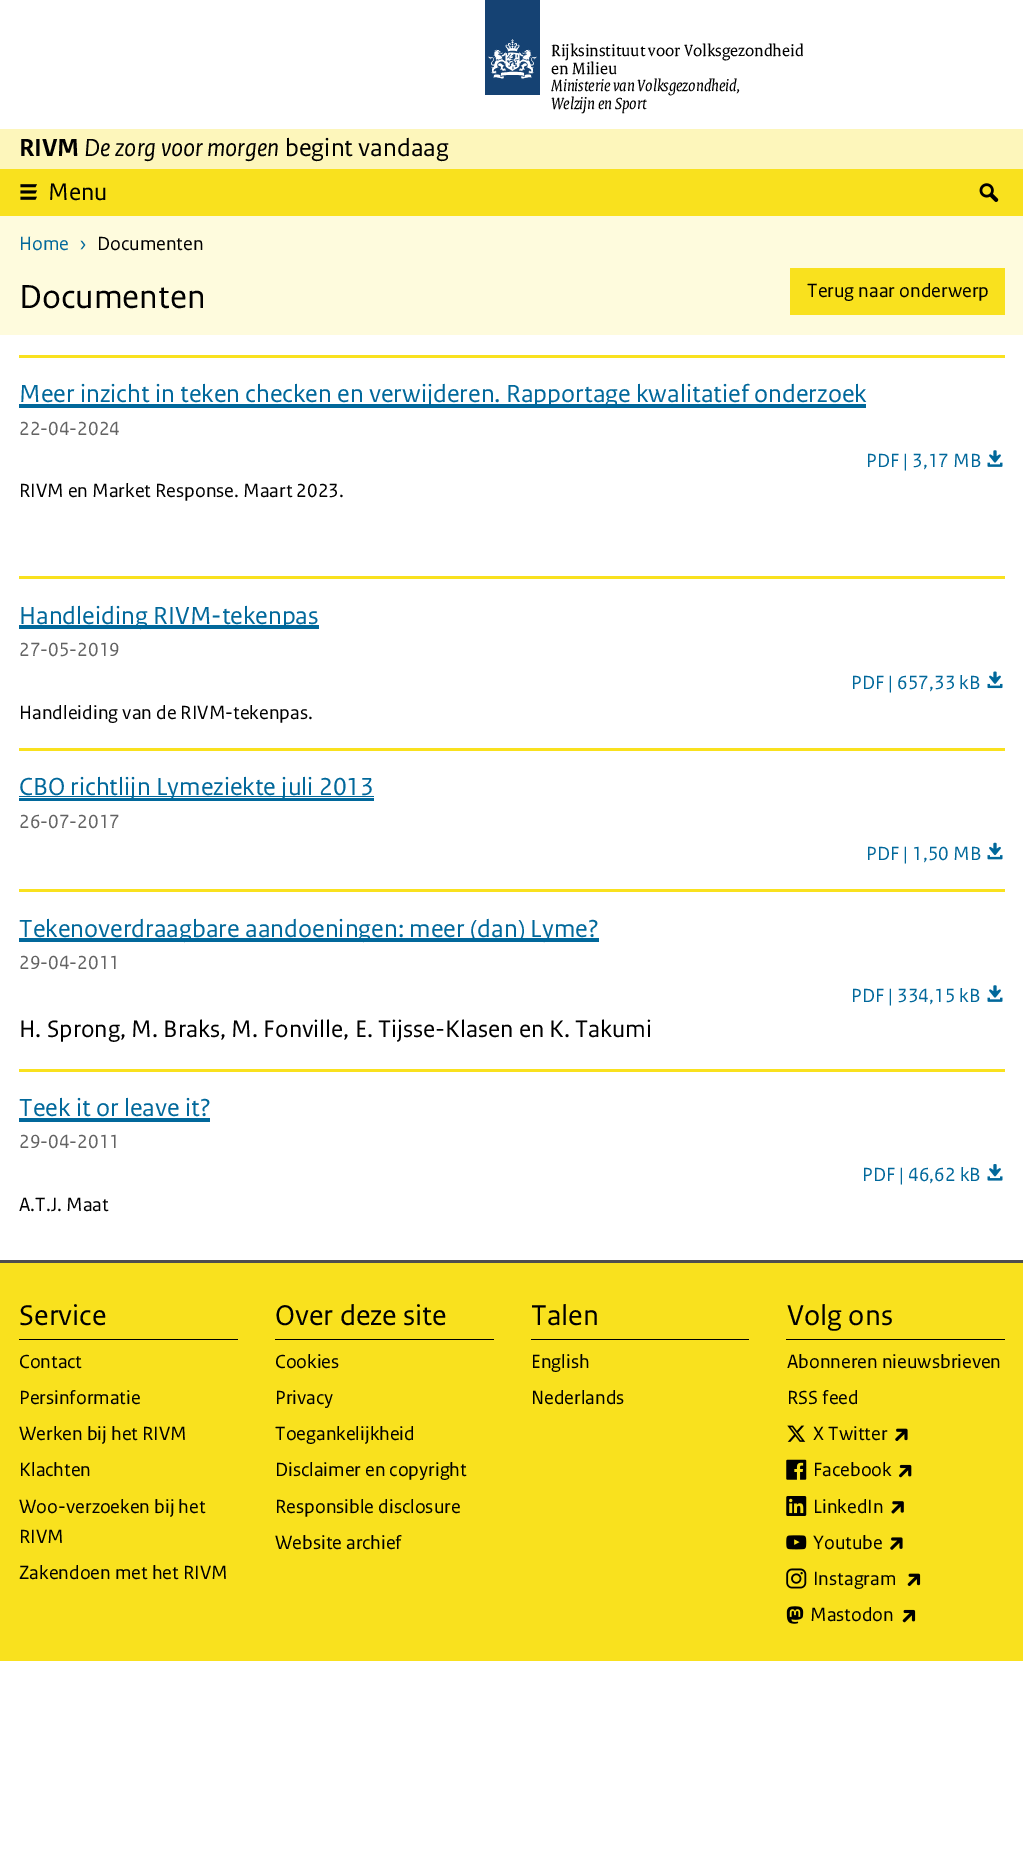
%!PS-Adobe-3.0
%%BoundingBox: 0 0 1023 1874
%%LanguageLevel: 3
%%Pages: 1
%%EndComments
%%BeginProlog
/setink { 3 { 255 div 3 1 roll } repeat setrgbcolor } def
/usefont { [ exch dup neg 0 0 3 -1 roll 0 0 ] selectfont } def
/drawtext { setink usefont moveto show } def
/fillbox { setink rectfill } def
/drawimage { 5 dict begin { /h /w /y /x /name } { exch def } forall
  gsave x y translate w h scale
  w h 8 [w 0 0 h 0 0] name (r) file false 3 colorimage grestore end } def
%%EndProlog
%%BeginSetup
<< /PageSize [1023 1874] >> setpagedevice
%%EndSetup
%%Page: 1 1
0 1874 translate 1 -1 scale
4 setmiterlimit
0 0 1023 1874 255 255 255 fillbox
(assets/img1.rgb) 485 0 55 95 drawimage
(Rijksinstituut voor Volksgezondheid) 551 56 /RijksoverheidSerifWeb-Regular 17.5 0 0 0 drawtext
(en Milieu) 551 74 /RijksoverheidSerifWeb-Regular 17.5 0 0 0 drawtext
(Ministerie van Volksgezondheid,) 551 91 /RijksoverheidSerifWeb-Italic 17.5 0 0 0 drawtext
(Welzijn en Sport) 551 109 /RijksoverheidSerifWeb-Italic 17.5 0 0 0 drawtext
0 129 1023 40 253 246 187 fillbox
(RIVM) 19 156 /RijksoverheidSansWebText-Bold 26 0 0 0 drawtext
(De zorg voor morgen) 84 156 /RijksoverheidSansWebText-Italic 26 0 0 0 drawtext
(begint vandaag) 285 156 /RijksoverheidSansWebText-Regular 26 0 0 0 drawtext
0 169 1023 47 249 225 30 fillbox
(assets/img2.rgb) 20 184 17 16 drawimage
(Menu) 48 200 /RijksoverheidSansWebText-Regular 25 0 0 0 drawtext
(assets/img3.rgb) 979 183 20 19 drawimage
0 216 1023 119 254 251 221 fillbox
(Home) 19 250 /RijksoverheidSansWebText-Regular 20 1 104 155 drawtext
(›) 79 250 /RijksoverheidSansWebText-Regular 20 1 104 155 drawtext
(Documenten) 97 250 /RijksoverheidSansWebText-Regular 20 0 0 0 drawtext
(Documenten) 19 308 /RijksoverheidSansWebText-Regular 35 0 0 0 drawtext
790 268 215 47 249 225 30 fillbox
(Terug naar onderwerp) 807 297 /RijksoverheidSansWebText-Regular 20 0 0 0 drawtext
19 355 986 3 249 225 30 fillbox
19 404 847 4 1 104 155 fillbox
(Meer inzicht in teken checken en verwijderen. Rapportage kwalitatief onderzoek) 19 402 /RijksoverheidSansWebText-Regular 26 1 104 155 drawtext
(22-04-2024) 19 435 /RijksoverheidSansWebText-Regular 20 99 99 99 drawtext
(PDF | 3,17 MB) 866 467 /RijksoverheidSansWebText-Regular 20 1 104 155 drawtext
(assets/img4.rgb) 987 450 16 17 drawimage
(RIVM en Market Response. Maart 2023.) 19 497 /RijksoverheidSansWebText-Regular 20 0 0 0 drawtext
19 576 986 3 249 225 30 fillbox
19 625 300 4 1 104 155 fillbox
(Handleiding RIVM-tekenpas) 19 624 /RijksoverheidSansWebText-Regular 26 1 104 155 drawtext
(27-05-2019) 19 656 /RijksoverheidSansWebText-Regular 20 99 99 99 drawtext
(PDF | 657,33 kB) 851 689 /RijksoverheidSansWebText-Regular 20 1 104 155 drawtext
(assets/img5.rgb) 987 671 16 18 drawimage
(Handleiding van de RIVM-tekenpas.) 19 719 /RijksoverheidSansWebText-Regular 20 0 0 0 drawtext
19 748 986 3 249 225 30 fillbox
19 798 355 3 1 104 155 fillbox
19 796 355 1 1 104 155 fillbox
(CBO richtlijn Lymeziekte juli 2013) 19 795 /RijksoverheidSansWebText-Regular 26 1 104 155 drawtext
(26-07-2017) 19 828 /RijksoverheidSansWebText-Regular 20 99 99 99 drawtext
(PDF | 1,50 MB) 866 860 /RijksoverheidSansWebText-Regular 20 1 104 155 drawtext
(assets/img6.rgb) 987 842 16 18 drawimage
19 889 986 3 249 225 30 fillbox
19 938 580 4 1 104 155 fillbox
(Tekenoverdraagbare aandoeningen: meer \(dan\) Lyme?) 19 937 /RijksoverheidSansWebText-Regular 26 1 104 155 drawtext
(29-04-2011) 19 969 /RijksoverheidSansWebText-Regular 20 99 99 99 drawtext
(PDF | 334,15 kB) 851 1002 /RijksoverheidSansWebText-Regular 20 1 104 155 drawtext
(assets/img4.rgb) 987 985 16 17 drawimage
(H. Sprong, M. Braks, M. Fonville, E. Tijsse-Klasen en K. Takumi) 19 1037 /RijksoverheidSansWebText-Regular 25 0 0 0 drawtext
19 1069 986 3 249 225 30 fillbox
(Teek it or leave it?) 19 1116 /RijksoverheidSansWebText-Regular 26 1 104 155 drawtext
19 1118 191 4 1 104 155 fillbox
(29-04-2011) 19 1148 /RijksoverheidSansWebText-Regular 20 99 99 99 drawtext
(PDF | 46,62 kB) 862 1181 /RijksoverheidSansWebText-Regular 20 1 104 155 drawtext
(assets/img7.rgb) 987 1164 16 17 drawimage
(A.T.J. Maat) 19 1211 /RijksoverheidSansWebText-Regular 20 0 0 0 drawtext
0 1263 1023 398 249 225 30 fillbox
0 1260 1023 3 78 78 78 fillbox
19 1339 219 1 0 0 0 fillbox
(Service) 19 1325 /RijksoverheidSansWebText-Regular 30 0 0 0 drawtext
(Contact) 19 1368 /RijksoverheidSansWebText-Regular 20 0 0 0 drawtext
(Persinformatie) 19 1404 /RijksoverheidSansWebText-Regular 20 0 0 0 drawtext
(Werken bij het RIVM) 19 1440 /RijksoverheidSansWebText-Regular 20 0 0 0 drawtext
(Klachten) 19 1476 /RijksoverheidSansWebText-Regular 20 0 0 0 drawtext
(Woo-verzoeken bij het) 19 1513 /RijksoverheidSansWebText-Regular 20 0 0 0 drawtext
(RIVM) 19 1543 /RijksoverheidSansWebText-Regular 20 0 0 0 drawtext
(Zakendoen met het RIVM) 19 1579 /RijksoverheidSansWebText-Regular 20 0 0 0 drawtext
275 1339 219 1 0 0 0 fillbox
(Over deze site) 275 1325 /RijksoverheidSansWebText-Regular 30 0 0 0 drawtext
(Cookies) 275 1368 /RijksoverheidSansWebText-Regular 20 0 0 0 drawtext
(Privacy) 275 1404 /RijksoverheidSansWebText-Regular 20 0 0 0 drawtext
(Toegankelijkheid) 275 1440 /RijksoverheidSansWebText-Regular 20 0 0 0 drawtext
(Disclaimer en copyright) 275 1476 /RijksoverheidSansWebText-Regular 20 0 0 0 drawtext
(Responsible disclosure) 275 1513 /RijksoverheidSansWebText-Regular 20 0 0 0 drawtext
(Website archief) 275 1549 /RijksoverheidSansWebText-Regular 20 0 0 0 drawtext
531 1339 218 1 0 0 0 fillbox
(Talen) 531 1325 /RijksoverheidSansWebText-Regular 30 0 0 0 drawtext
(English) 531 1368 /RijksoverheidSansWebText-Regular 20 0 0 0 drawtext
(Nederlands) 531 1404 /RijksoverheidSansWebText-Regular 20 0 0 0 drawtext
786 1339 219 1 0 0 0 fillbox
(Volg ons) 787 1325 /RijksoverheidSansWebText-Regular 30 0 0 0 drawtext
(Abonneren nieuwsbrieven) 787 1368 /RijksoverheidSansWebText-Regular 20 0 0 0 drawtext
(RSS feed) 787 1404 /RijksoverheidSansWebText-Regular 20 0 0 0 drawtext
(assets/img8.rgb) 787 1425 19 17 drawimage
(X Twitter) 813 1440 /RijksoverheidSansWebText-Regular 20 0 0 0 drawtext
(assets/img9.rgb) 895 1428 13 13 drawimage
(assets/img10.rgb) 786 1459 21 21 drawimage
(Facebook) 813 1476 /RijksoverheidSansWebText-Regular 20 0 0 0 drawtext
(assets/img11.rgb) 898 1464 14 14 drawimage
(assets/img12.rgb) 786 1496 21 20 drawimage
(LinkedIn) 813 1513 /RijksoverheidSansWebText-Regular 20 0 0 0 drawtext
(assets/img13.rgb) 891 1501 13 13 drawimage
(assets/img14.rgb) 786 1535 21 15 drawimage
(Youtube) 813 1549 /RijksoverheidSansWebText-Regular 20 0 0 0 drawtext
(assets/img15.rgb) 890 1537 13 13 drawimage
(assets/img16.rgb) 786 1568 21 21 drawimage
(Instagram) 813 1585 /RijksoverheidSansWebText-Regular 20 0 0 0 drawtext
(assets/img17.rgb) 907 1573 14 13 drawimage
(assets/img18.rgb) 786 1606 18 18 drawimage
(Mastodon) 810 1621 /RijksoverheidSansWebText-Regular 20 0 0 0 drawtext
(assets/img19.rgb) 902 1609 14 14 drawimage
showpage
%%EOF
